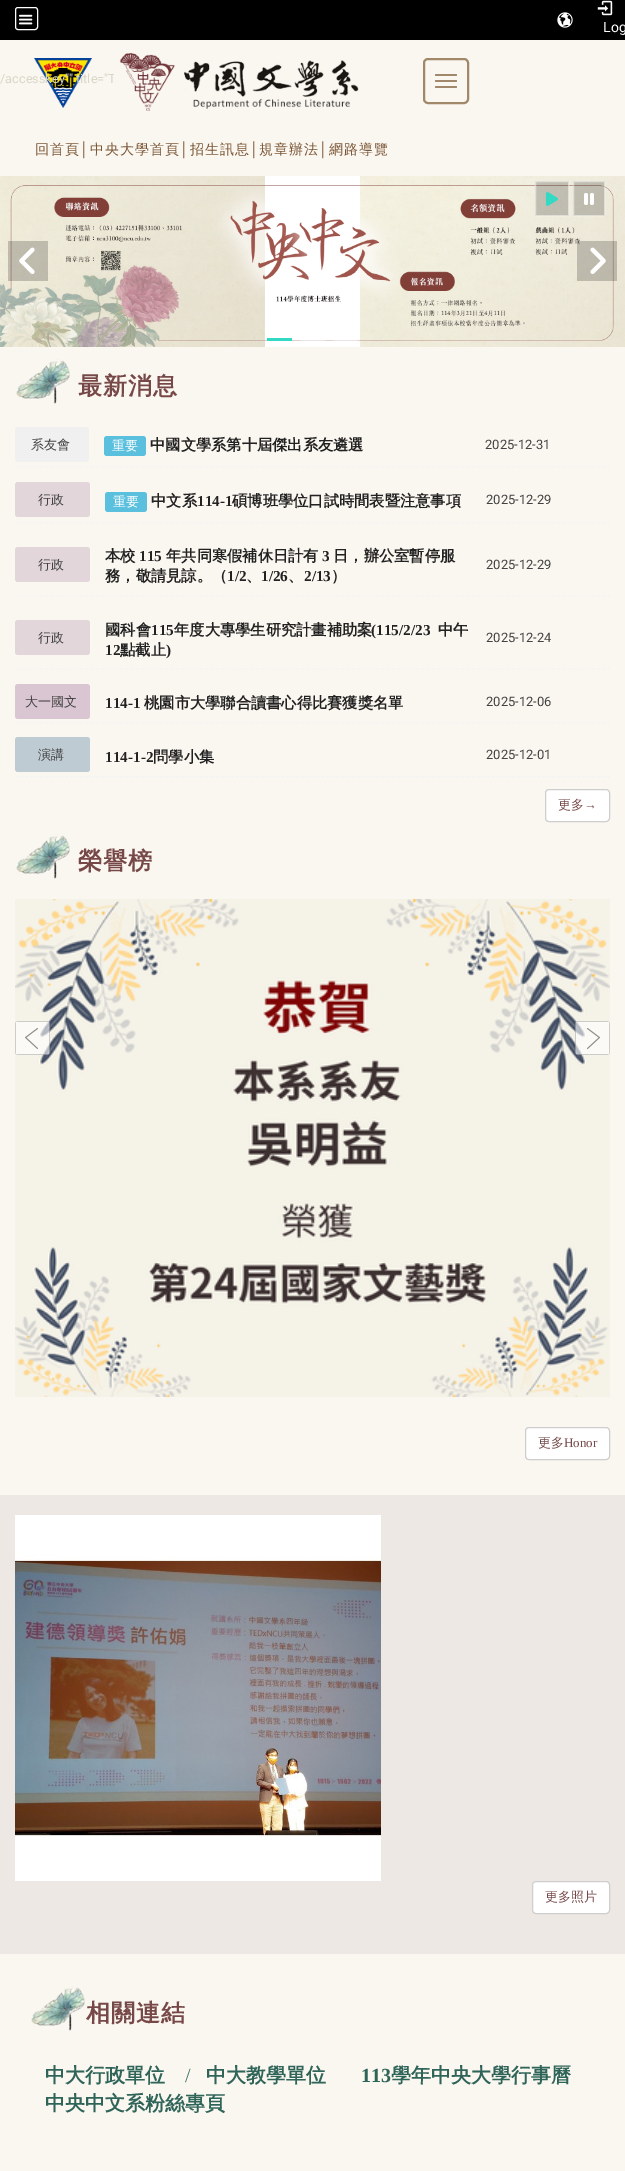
%!PS-Adobe-3.0
%%BoundingBox: 0 0 625 2171
%%LanguageLevel: 3
%%Pages: 1
%%EndComments
%%BeginProlog
/setink { 3 { 255 div 3 1 roll } repeat setrgbcolor } def
/usefont { [ exch dup neg 0 0 3 -1 roll 0 0 ] selectfont } def
/drawtext { setink usefont moveto show } def
/fillbox { setink rectfill } def
/setalpha { dup .setfillconstantalpha .setstrokeconstantalpha } def
/rrect { 5 dict begin { /r /h /w /y /x } { exch def } forall
  x r add y moveto x w add y 2 copy h add r arct x w add y h add x 1 index r arct
  x y h add x y r arct x y 2 copy exch w add exch r arct closepath end } def
/drawimage { 5 dict begin { /h /w /y /x /name } { exch def } forall
  gsave x y translate w h scale
  w h 8 [w 0 0 h 0 0] name (r) file false 3 colorimage grestore end } def
%%EndProlog
%%BeginSetup
<< /PageSize [625 2171] /PageUsesTransparency true >> setpagedevice
%%EndSetup
%%Page: 1 1
0 .pushpdf14devicefilter
0 2171 translate 1 -1 scale
4 setmiterlimit
0 0 625 2171 250 246 240 fillbox
0 0 625 40 0 0 0 fillbox
255 255 255 setink
15.5 7.5 22 22 2.5 rrect stroke
(assets/img1.rgb) 18 14 15 11 drawimage
(assets/img2.rgb) 557 12 16 16 drawimage
(assets/img3.rgb) 597 0 16 16 drawimage
(Log) 603 32 /Roboto-Regular 14 255 255 255 drawtext
(assets/img4.rgb) 34 58 58 50 drawimage
(/accesskey"" title="T) 0 83 /Roboto-Regular 12.75 217 215 199 drawtext
(assets/img5.rgb) 114 53 245 58 drawimage
162 136 107 setink
2 setlinewidth
424 59 44 44 4 rrect stroke
435 74 22 2 1 rrect fill
435 80 22 2 1 rrect fill
435 86 22 2 1 rrect fill
/WenQuanYiZenHei-Medium 14 usefont
122 86 54 setink
35 154 moveto 1 0 (回首頁) ashow
/LiberationSans-Regular 14 usefont
80 154 moveto 1 0 (│) ashow
/WenQuanYiZenHei-Medium 14 usefont
90 154 moveto 1 0 (中央大學首頁) ashow
/LiberationSans-Regular 14 usefont
180 154 moveto 1 0 (│) ashow
/WenQuanYiZenHei-Medium 14 usefont
190 154 moveto 1 0 (招生訊息) ashow
/LiberationSans-Regular 14 usefont
250 154 moveto 1 0 (│) ashow
/WenQuanYiZenHei-Medium 14 usefont
259 154 moveto 1 0 (規章辦法) ashow
/LiberationSans-Regular 14 usefont
319 154 moveto 1 0 (│) ashow
/WenQuanYiZenHei-Medium 14 usefont
329 154 moveto 1 0 (網路導覽) ashow
(assets/img6.rgb) 0 176 625 171 drawimage
0.2 setalpha
535 181 34 35 0 0 0 fillbox
0.5 setalpha
255 255 255 setink
1 setlinewidth
535.5 181.5 33 34 rectstroke
1 setalpha
(assets/img7.rgb) 546 192 12 14 drawimage
0.2 setalpha
573 181 32 35 0 0 0 fillbox
0.5 setalpha
255 255 255 setink
573.5 181.5 31 34 rectstroke
1 setalpha
(assets/img8.rgb) 584 193 10 12 drawimage
0.2 setalpha
8 241 40 40 0 0 0 fillbox
1 setalpha
(assets/img9.rgb) 19 247 16 27 drawimage
0.2 setalpha
577 241 40 40 0 0 0 fillbox
1 setalpha
(assets/img10.rgb) 590 247 16 27 drawimage
267 338 25 3 50 217 195 fillbox
0.4 setalpha
300 340 25 1 255 255 255 fillbox
333 340 25 1 255 255 255 fillbox
1 setalpha
(assets/img11.rgb) 16 359 54 45 drawimage
/WenQuanYiZenHei-Bold 24 usefont
119 72 72 setink
78 394 moveto 1 0 (最新消息) ashow
243 244 245 setink
[3 2.02] 0 setdash
15 466.5 moveto 610 466.5 lineto stroke
241 240 240 setink
18 427 moveto 70 427 lineto 70 462 lineto 18 462 lineto 16.5 462 15 460.5 15 459 curveto 15 430 lineto 15 428.5 16.5 427 18 427 curveto closepath fill
(系友會) 31 449 /WenQuanYiZenHei-Medium 13 66 66 66 drawtext
241 240 240 setink
70 427 moveto 86 427 lineto 87.5 427 89 428.5 89 430 curveto 89 459 lineto 89 460.5 87.5 462 86 462 curveto 70 462 lineto closepath fill
91 192 222 setink
104 436 42 20 3 rrect fill
(重要) 112 450 /WenQuanYiZenHei-Medium 13 255 255 255 drawtext
(中國文學系第十屆傑出系友遴選) 150 450 /WenQuanYiZenHei-Bold 15.25 34 34 34 drawtext
(2025-12-31) 485 449 /Roboto-Regular 13 66 66 66 drawtext
243 244 245 setink
15 522.5 moveto 610 522.5 lineto stroke
226 214 218 setink
18 482 moveto 64 482 lineto 64 517 lineto 18 517 lineto 16.5 517 15 515.5 15 514 curveto 15 485 lineto 15 483.5 16.5 482 18 482 curveto closepath fill
(行政) 38 504 /WenQuanYiZenHei-Medium 13 66 66 66 drawtext
226 214 218 setink
64 482 moveto 87 482 lineto 88.5 482 90 483.5 90 485 curveto 90 514 lineto 90 515.5 88.5 517 87 517 curveto 64 517 lineto closepath fill
91 192 222 setink
105 492 42 20 3 rrect fill
(重要) 113 506 /WenQuanYiZenHei-Medium 13 255 255 255 drawtext
(中文系) 151 506 /WenQuanYiZenHei-Bold 15.25 34 34 34 drawtext
(114-1) 197 506 /LiberationSerif-Bold 15.25 34 34 34 drawtext
(碩博班學位口試時間表暨注意事項) 232 506 /WenQuanYiZenHei-Bold 15.25 34 34 34 drawtext
(2025-12-29) 486 504 /Roboto-Regular 13 66 66 66 drawtext
243 244 245 setink
15 595.5 moveto 610 595.5 lineto stroke
226 214 218 setink
18 547 moveto 64 547 lineto 64 582 lineto 18 582 lineto 16.5 582 15 580.5 15 579 curveto 15 550 lineto 15 548.5 16.5 547 18 547 curveto closepath fill
(行政) 38 569 /WenQuanYiZenHei-Medium 13 66 66 66 drawtext
226 214 218 setink
64 547 moveto 87 547 lineto 88.5 547 90 548.5 90 550 curveto 90 579 lineto 90 580.5 88.5 582 87 582 curveto 64 582 lineto closepath fill
(本校) 105 561 /WenQuanYiZenHei-Bold 15.25 34 34 34 drawtext
(115) 139 561 /LiberationSerif-Bold 15.25 34 34 34 drawtext
(年共同寒假補休日計有) 166 561 /WenQuanYiZenHei-Bold 15.25 34 34 34 drawtext
(3) 322 561 /LiberationSerif-Bold 15.25 34 34 34 drawtext
(日，辦公室暫停服) 333 561 /WenQuanYiZenHei-Bold 15.25 34 34 34 drawtext
(務，敬請見諒。（) 105 581 /WenQuanYiZenHei-Bold 15.25 34 34 34 drawtext
(1/2) 227 581 /LiberationSerif-Bold 15.25 34 34 34 drawtext
(、) 246 581 /WenQuanYiZenHei-Bold 15.25 34 34 34 drawtext
(1/26) 261 581 /LiberationSerif-Bold 15.25 34 34 34 drawtext
(、) 288 581 /WenQuanYiZenHei-Bold 15.25 34 34 34 drawtext
(2/13) 304 581 /LiberationSerif-Bold 15.25 34 34 34 drawtext
(）) 331 581 /WenQuanYiZenHei-Bold 15.25 34 34 34 drawtext
(2025-12-29) 486 569 /Roboto-Regular 13 66 66 66 drawtext
243 244 245 setink
15 668.5 moveto 610 668.5 lineto stroke
226 214 218 setink
18 620 moveto 64 620 lineto 64 655 lineto 18 655 lineto 16.5 655 15 653.5 15 652 curveto 15 623 lineto 15 621.5 16.5 620 18 620 curveto closepath fill
(行政) 38 642 /WenQuanYiZenHei-Medium 13 66 66 66 drawtext
226 214 218 setink
64 620 moveto 87 620 lineto 88.5 620 90 621.5 90 623 curveto 90 652 lineto 90 653.5 88.5 655 87 655 curveto 64 655 lineto closepath fill
(國科會) 105 635 /WenQuanYiZenHei-Bold 15.25 34 34 34 drawtext
(115) 151 635 /LiberationSerif-Bold 15.25 34 34 34 drawtext
(年度大專學生研究計畫補助案) 174 635 /WenQuanYiZenHei-Bold 15.25 34 34 34 drawtext
(\(115/2/23) 371 635 /LiberationSerif-Bold 15.25 34 34 34 drawtext
(中午) 438 635 /WenQuanYiZenHei-Bold 15.25 34 34 34 drawtext
(12) 105 655 /LiberationSerif-Bold 15.25 34 34 34 drawtext
(點截止) 120 655 /WenQuanYiZenHei-Bold 15.25 34 34 34 drawtext
(\)) 166 655 /LiberationSerif-Bold 15.25 34 34 34 drawtext
(2025-12-24) 486 642 /Roboto-Regular 13 66 66 66 drawtext
243 244 245 setink
15 722.5 moveto 610 722.5 lineto stroke
218 198 210 setink
18 684 moveto 77 684 lineto 77 719 lineto 18 719 lineto 16.5 719 15 717.5 15 716 curveto 15 687 lineto 15 685.5 16.5 684 18 684 curveto closepath fill
(大一國文) 25 706 /WenQuanYiZenHei-Medium 13 66 66 66 drawtext
218 198 210 setink
77 684 moveto 87 684 lineto 88.5 684 90 685.5 90 687 curveto 90 716 lineto 90 717.5 88.5 719 87 719 curveto 77 719 lineto closepath fill
(114-1) 105 708 /LiberationSerif-Bold 15.25 34 34 34 drawtext
(桃園市大學聯合讀書心得比賽獲獎名單) 144 708 /WenQuanYiZenHei-Bold 15.25 34 34 34 drawtext
(2025-12-06) 486 706 /Roboto-Regular 13 66 66 66 drawtext
243 244 245 setink
15 776.5 moveto 610 776.5 lineto stroke
191 203 210 setink
18 737 moveto 64 737 lineto 64 772 lineto 18 772 lineto 16.5 772 15 770.5 15 769 curveto 15 740 lineto 15 738.5 16.5 737 18 737 curveto closepath fill
(演講) 38 759 /WenQuanYiZenHei-Medium 13 66 66 66 drawtext
191 203 210 setink
64 737 moveto 87 737 lineto 88.5 737 90 738.5 90 740 curveto 90 769 lineto 90 770.5 88.5 772 87 772 curveto 64 772 lineto closepath fill
(114-1-2) 105 762 /LiberationSerif-Bold 15.25 34 34 34 drawtext
(問學小集) 153 762 /WenQuanYiZenHei-Bold 15.25 34 34 34 drawtext
(2025-12-01) 486 759 /Roboto-Regular 13 66 66 66 drawtext
255 255 255 setink
545.5 789.5 64 32 3.5 rrect gsave fill grestore
206 206 206 setink
[] 0 setdash
stroke
(更多) 558 809 /WenQuanYiZenHei-Medium 13 119 72 72 drawtext
(→) 584 809 /LiberationSerif-Regular 13 119 72 72 drawtext
(assets/img11.rgb) 16 834 54 45 drawimage
/WenQuanYiZenHei-Bold 24 usefont
78 869 moveto 1 0 (榮譽榜) ashow
(assets/img12.rgb) 15 899 595 498 drawimage
(assets/img13.rgb) 15 1021 35 34 drawimage
(assets/img14.rgb) 575 1021 35 34 drawimage
255 255 255 setink
525.5 1427.5 84 32 3.5 rrect gsave fill grestore
206 206 206 setink
stroke
(更多) 538 1447 /WenQuanYiZenHei-Medium 13 119 72 72 drawtext
(Honor) 564 1447 /LiberationSerif-Regular 13 119 72 72 drawtext
0 1495 625 459 237 232 227 fillbox
(assets/img15.rgb) 15 1515 366 366 drawimage
255 255 255 setink
532.5 1881.5 77 32 3.5 rrect gsave fill grestore
206 206 206 setink
stroke
(更多照片) 545 1901 /WenQuanYiZenHei-Medium 13 119 72 72 drawtext
(assets/img11.rgb) 31 1986 54 45 drawimage
/WenQuanYiZenHei-Bold 24 usefont
86 2021 moveto 1 0 (相關連結) ashow
(中大行政單位) 45 2082 /WenQuanYiZenHei-Bold 20 47 100 89 drawtext
(/) 185 2082 /LiberationSerif-Regular 20 62 118 106 drawtext
(中大教學單位) 206 2082 /WenQuanYiZenHei-Bold 20 47 100 89 drawtext
(113) 361 2082 /LiberationSerif-Bold 20 47 100 89 drawtext
(學年中央大學行事曆) 391 2082 /WenQuanYiZenHei-Bold 20 47 100 89 drawtext
(中央中文系粉絲專頁) 45 2110 /WenQuanYiZenHei-Bold 20 47 100 89 drawtext
.poppdf14devicefilter showpage
%%EOF
